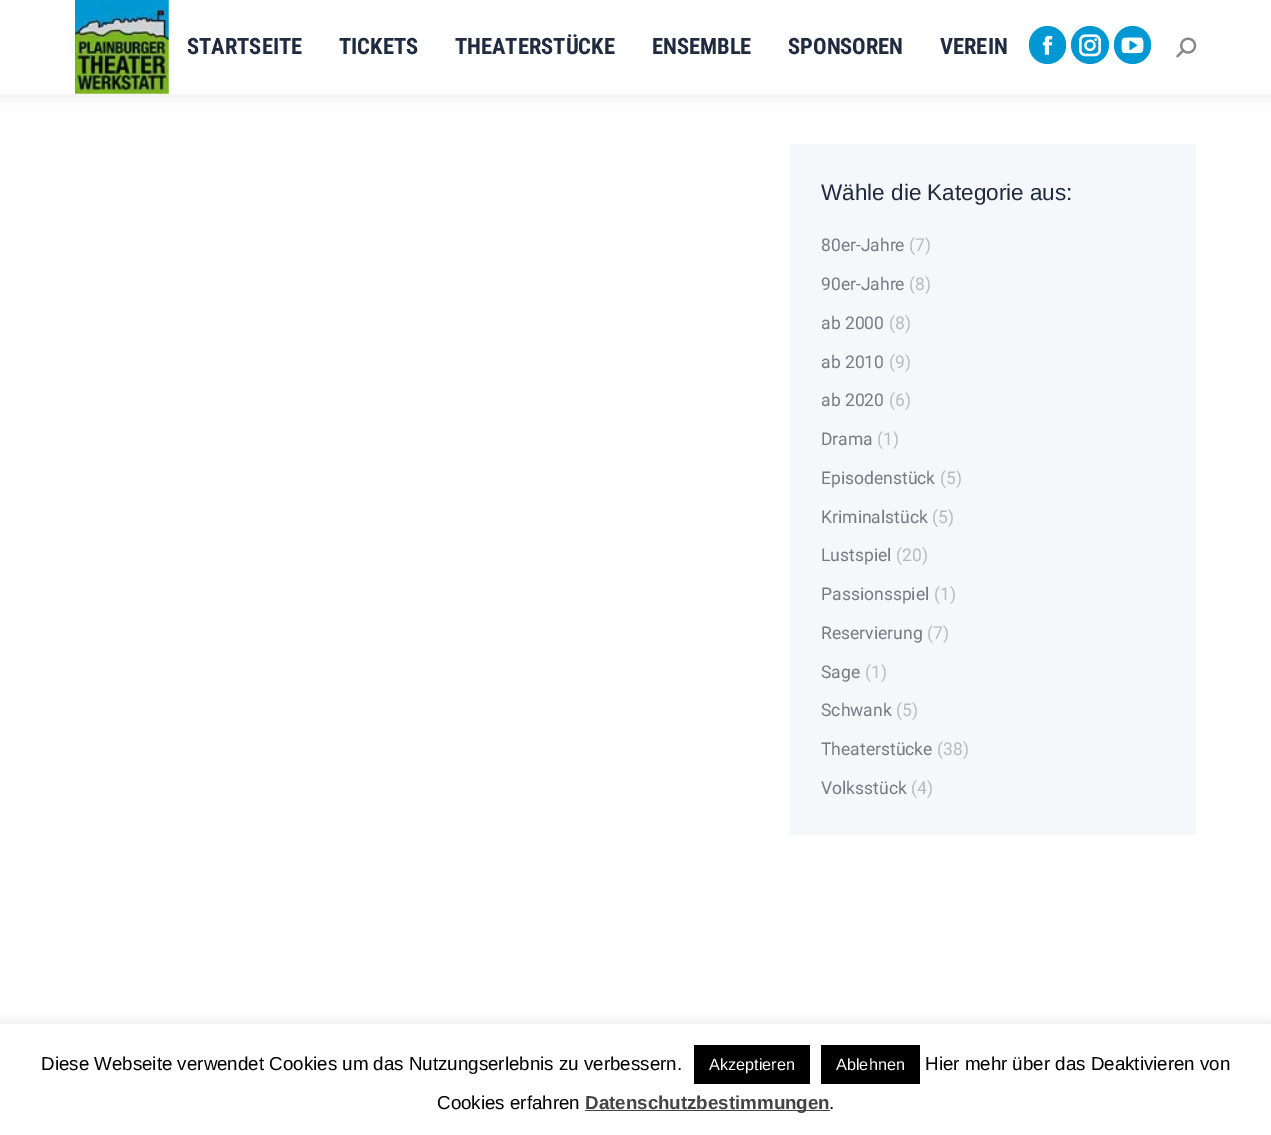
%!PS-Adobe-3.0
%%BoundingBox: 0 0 1271 1135
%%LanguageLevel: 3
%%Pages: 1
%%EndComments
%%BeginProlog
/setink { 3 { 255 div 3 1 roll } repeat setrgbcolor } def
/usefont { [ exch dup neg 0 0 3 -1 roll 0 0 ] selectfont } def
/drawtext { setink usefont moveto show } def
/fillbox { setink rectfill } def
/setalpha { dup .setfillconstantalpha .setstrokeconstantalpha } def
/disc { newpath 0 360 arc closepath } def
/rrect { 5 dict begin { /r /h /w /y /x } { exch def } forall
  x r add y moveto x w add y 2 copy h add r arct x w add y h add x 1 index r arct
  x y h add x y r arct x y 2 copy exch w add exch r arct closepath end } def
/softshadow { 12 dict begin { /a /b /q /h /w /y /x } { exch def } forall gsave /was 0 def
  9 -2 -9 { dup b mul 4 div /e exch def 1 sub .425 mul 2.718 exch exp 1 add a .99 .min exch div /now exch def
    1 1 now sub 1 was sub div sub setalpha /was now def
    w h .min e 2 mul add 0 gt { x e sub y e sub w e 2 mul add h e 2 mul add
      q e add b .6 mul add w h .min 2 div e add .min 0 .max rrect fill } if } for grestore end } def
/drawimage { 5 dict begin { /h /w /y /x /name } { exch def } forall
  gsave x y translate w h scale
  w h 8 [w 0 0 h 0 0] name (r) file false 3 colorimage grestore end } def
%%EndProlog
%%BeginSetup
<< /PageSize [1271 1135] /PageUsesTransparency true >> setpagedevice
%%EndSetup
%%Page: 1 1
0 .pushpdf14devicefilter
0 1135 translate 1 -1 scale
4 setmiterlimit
0 0 1271 1135 255 255 255 fillbox
0 0 0 setink
-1 -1 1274 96 0 9.5 0.07 softshadow
0 0 1271 94 255 255 255 fillbox
(assets/img1.rgb) 75 0 94 94 drawimage
(STARTSEITE) 187 54 /RobotoCondensed-Bold 22.5 32 43 64 drawtext
(TICKETS) 339 54 /RobotoCondensed-Bold 22.5 32 43 64 drawtext
(THEATERSTÜCKE) 455 54 /RobotoCondensed-Bold 22.5 32 43 64 drawtext
(ENSEMBLE) 652 54 /RobotoCondensed-Bold 22.5 32 43 64 drawtext
(SPONSOREN) 788 54 /RobotoCondensed-Bold 22.5 32 43 64 drawtext
(VEREIN) 940 54 /RobotoCondensed-Bold 22.5 32 43 64 drawtext
0 152 211 setink
1029 26 37 38 18.5 rrect fill
(assets/img2.rgb) 1042 35 11 20 drawimage
1090 45 19 disc fill
(assets/img3.rgb) 1079 34 22 23 drawimage
1114 26 37 38 18.5 rrect fill
(assets/img4.rgb) 1121 37 23 17 drawimage
(assets/img5.rgb) 1176 37 21 21 drawimage
790 144 406 691 246 247 250 fillbox
(Wähle die Kategorie aus:) 821 200 /LiberationSans-Regular 22.5 32 43 64 drawtext
(80er-Jahre) 821 251 /Roboto-Regular 17.5 118 122 129 drawtext
(\(7\)) 909 251 /Roboto-Regular 17.5 182 185 190 drawtext
(90er-Jahre) 821 290 /Roboto-Regular 17.5 118 122 129 drawtext
(\(8\)) 909 290 /Roboto-Regular 17.5 182 185 190 drawtext
(ab 2000) 821 329 /Roboto-Regular 17.5 118 122 129 drawtext
(\(8\)) 889 329 /Roboto-Regular 17.5 182 185 190 drawtext
(ab 2010) 821 368 /Roboto-Regular 17.5 118 122 129 drawtext
(\(9\)) 889 368 /Roboto-Regular 17.5 182 185 190 drawtext
(ab 2020) 821 406 /Roboto-Regular 17.5 118 122 129 drawtext
(\(6\)) 889 406 /Roboto-Regular 17.5 182 185 190 drawtext
(Drama) 821 445 /Roboto-Regular 17.5 118 122 129 drawtext
(\(1\)) 877 445 /Roboto-Regular 17.5 182 185 190 drawtext
(Episodenstück) 821 484 /Roboto-Regular 17.5 118 122 129 drawtext
(\(5\)) 940 484 /Roboto-Regular 17.5 182 185 190 drawtext
(Kriminalstück) 821 523 /Roboto-Regular 17.5 118 122 129 drawtext
(\(5\)) 932 523 /Roboto-Regular 17.5 182 185 190 drawtext
(Lustspiel) 821 561 /Roboto-Regular 17.5 118 122 129 drawtext
(\(20\)) 896 561 /Roboto-Regular 17.5 182 185 190 drawtext
(Passionsspiel) 821 600 /Roboto-Regular 17.5 118 122 129 drawtext
(\(1\)) 934 600 /Roboto-Regular 17.5 182 185 190 drawtext
(Reservierung) 821 639 /Roboto-Regular 17.5 118 122 129 drawtext
(\(7\)) 927 639 /Roboto-Regular 17.5 182 185 190 drawtext
(Sage) 821 678 /Roboto-Regular 17.5 118 122 129 drawtext
(\(1\)) 865 678 /Roboto-Regular 17.5 182 185 190 drawtext
(Schwank) 821 716 /Roboto-Regular 17.5 118 122 129 drawtext
(\(5\)) 896 716 /Roboto-Regular 17.5 182 185 190 drawtext
(Theaterstücke) 821 755 /Roboto-Regular 17.5 118 122 129 drawtext
(\(38\)) 937 755 /Roboto-Regular 17.5 182 185 190 drawtext
(Volksstück) 821 794 /Roboto-Regular 17.5 118 122 129 drawtext
(\(4\)) 911 794 /Roboto-Regular 17.5 182 185 190 drawtext
172 171 171 setink
0 1023 1271 111 0 6 0.3 softshadow
0 1024 1271 111 255 255 255 fillbox
(Diese Webseite verwendet Cookies um das Nutzungserlebnis zu verbessern.) 41 1070 /LiberationSans-Regular 18.75 0 0 0 drawtext
694 1045 116 39 0 0 0 fillbox
(Akzeptieren) 709 1070 /LiberationSans-Regular 16.25 255 255 255 drawtext
821 1045 99 39 0 0 0 fillbox
(Ablehnen) 836 1070 /LiberationSans-Regular 16.25 255 255 255 drawtext
(Hier mehr über das Deaktivieren von) 925 1070 /LiberationSans-Regular 18.75 0 0 0 drawtext
(Cookies erfahren) 437 1109 /LiberationSans-Regular 18.75 0 0 0 drawtext
585 1110 245 1 68 68 68 fillbox
(Datenschutzbestimmungen) 585 1109 /LiberationSans-Bold 18.75 68 68 68 drawtext
(.) 829 1109 /LiberationSans-Regular 18.75 0 0 0 drawtext
.poppdf14devicefilter showpage
%%EOF
